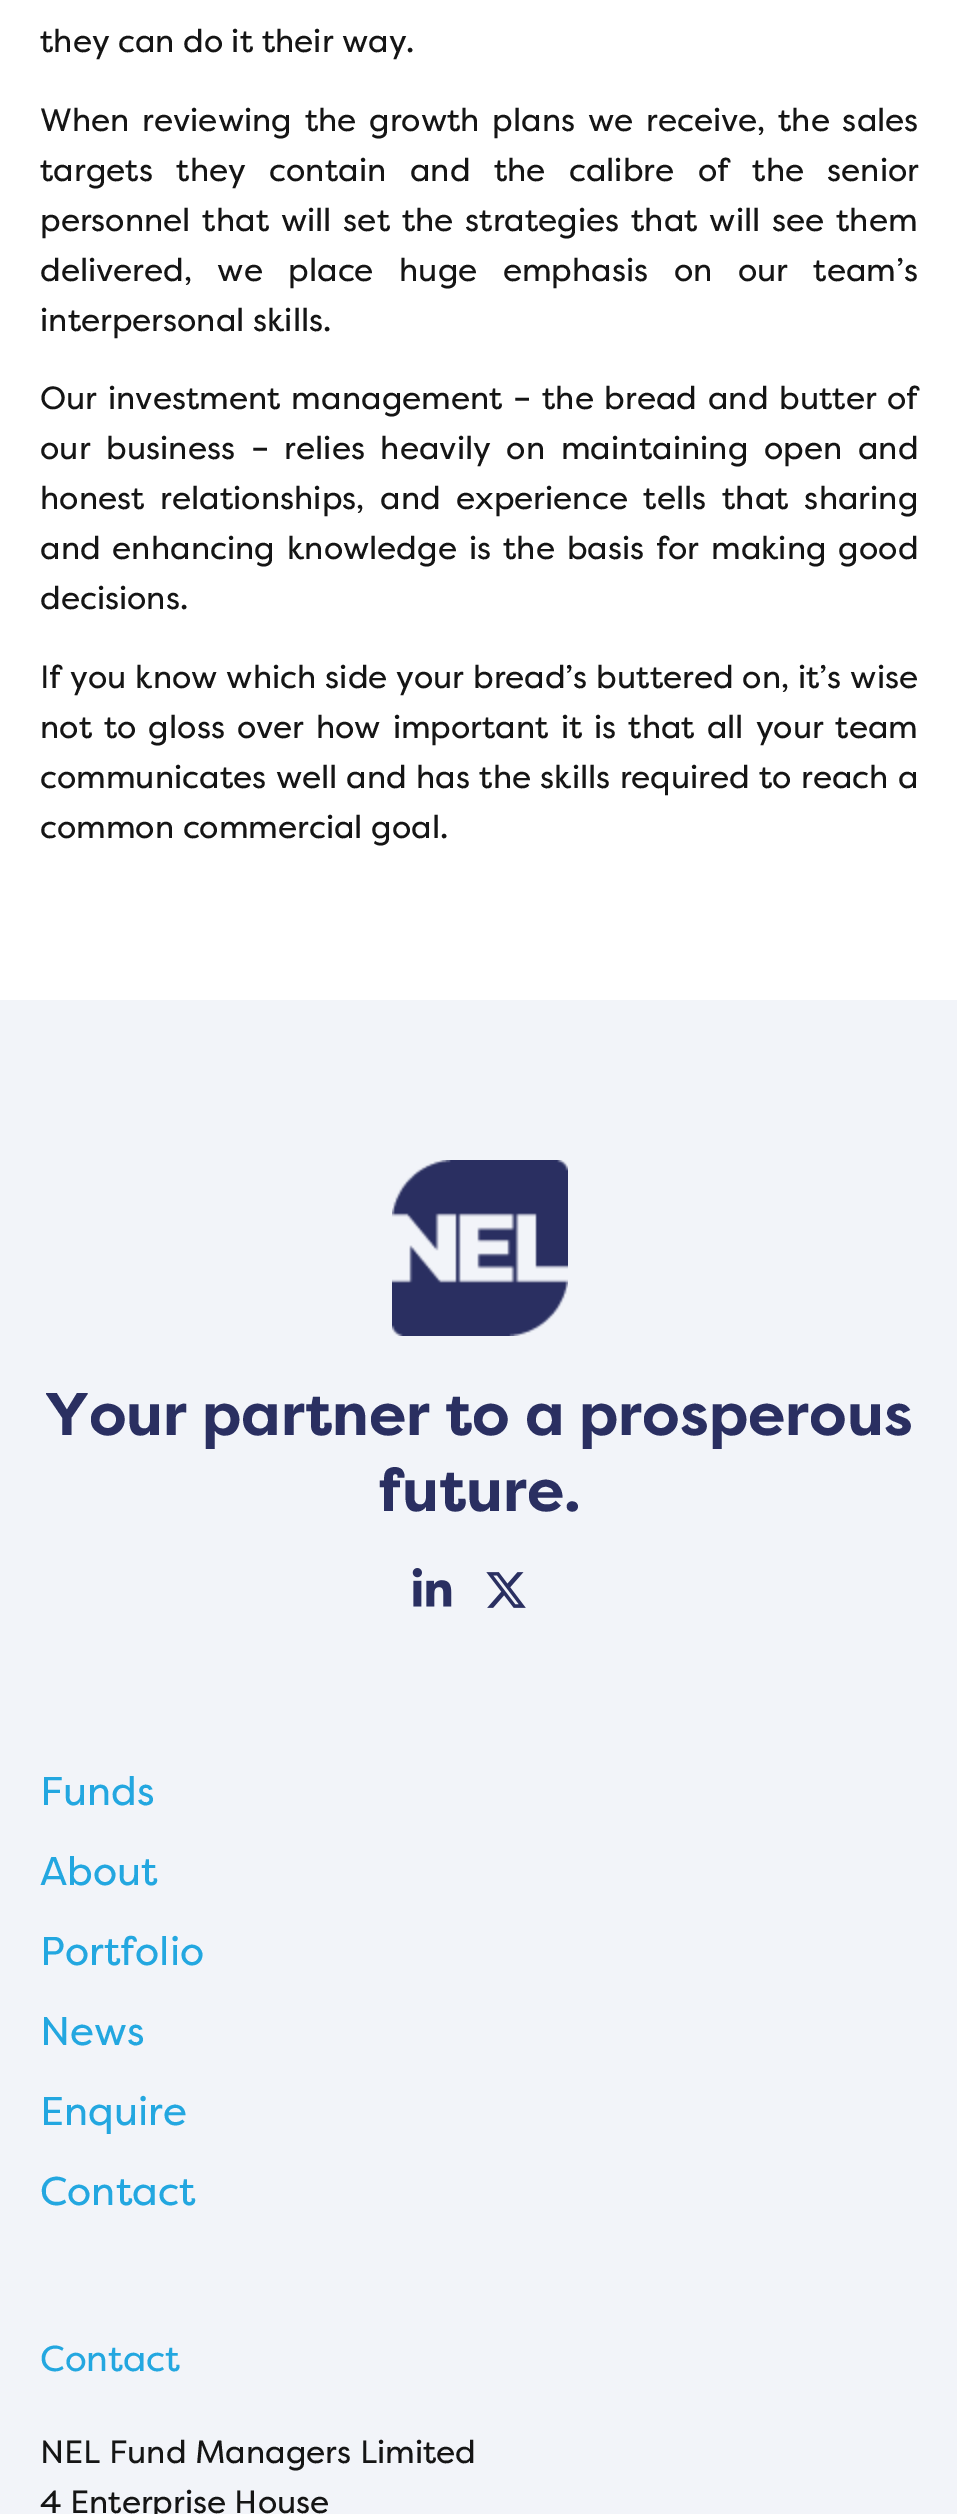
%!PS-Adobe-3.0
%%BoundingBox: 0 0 957 2514
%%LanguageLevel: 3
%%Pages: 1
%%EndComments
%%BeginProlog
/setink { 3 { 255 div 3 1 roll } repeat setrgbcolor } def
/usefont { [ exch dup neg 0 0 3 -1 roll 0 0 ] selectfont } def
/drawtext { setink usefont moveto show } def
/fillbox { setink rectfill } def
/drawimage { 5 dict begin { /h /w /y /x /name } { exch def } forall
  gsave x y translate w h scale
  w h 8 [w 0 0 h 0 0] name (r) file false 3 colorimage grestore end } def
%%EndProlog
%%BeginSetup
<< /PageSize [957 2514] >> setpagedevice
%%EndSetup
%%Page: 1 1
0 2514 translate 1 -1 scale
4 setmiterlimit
0 0 957 2514 255 255 255 fillbox
(they can do it their way.) 40 52 /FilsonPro-Regular 32 21 21 21 drawtext
40 131 moveto 4.25 0 32 (When reviewing the growth plans we receive, the sales) widthshow
40 181 moveto 15 0 32 (targets they contain and the calibre of the senior) widthshow
40 231 moveto 3.25 0 32 (personnel that will set the strategies that will see them) widthshow
40 281 moveto 17 0 32 (delivered, we place huge emphasis on our team’s) widthshow
(interpersonal skills.) 40 331 /FilsonPro-Regular 32 21 21 21 drawtext
40 409 moveto 2.25 0 32 (Our investment management – the bread and butter of) widthshow
40 459 moveto 7.25 0 32 (our business – relies heavily on maintaining open and) widthshow
40 509 moveto 7.25 0 32 (honest relationships, and experience tells that sharing) widthshow
40 559 moveto 3.5 0 32 (and enhancing knowledge is the basis for making good) widthshow
(decisions.) 40 609 /FilsonPro-Regular 32 21 21 21 drawtext
40 688 moveto 0.4 0 32 (If you know which side your bread’s buttered on, it’s wise) widthshow
40 738 moveto 3.4 0 32 (not to gloss over how important it is that all your team) widthshow
40 788 moveto 0.75 0 32 (communicates well and has the skills required to reach a) widthshow
(common commercial goal.) 40 838 /FilsonPro-Regular 32 21 21 21 drawtext
0 1000 957 1514 242 244 249 fillbox
(assets/img1.rgb) 392 1160 176 176 drawimage
(Your partner to a prosperous) 45 1435 /FilsonPro-Bold 60 42 47 97 drawtext
(future.) 378 1511 /FilsonPro-Bold 60 42 47 97 drawtext
(assets/img2.rgb) 412 1568 40 39 drawimage
(assets/img3.rgb) 486 1572 40 36 drawimage
(Funds) 40 1805 /FilsonPro-Regular 40 35 167 224 drawtext
(About) 40 1885 /FilsonPro-Regular 40 35 167 224 drawtext
(Portfolio) 40 1965 /FilsonPro-Regular 40 35 167 224 drawtext
(News) 40 2045 /FilsonPro-Regular 40 35 167 224 drawtext
(Enquire) 40 2125 /FilsonPro-Regular 40 35 167 224 drawtext
(Contact) 40 2205 /FilsonPro-Regular 40 35 167 224 drawtext
(Contact) 40 2371 /FilsonPro-Regular 36 35 167 224 drawtext
(NEL Fund Managers Limited) 40 2463 /FilsonPro-Regular 32 21 21 21 drawtext
(4 Enterprise House) 40 2513 /FilsonPro-Regular 32 21 21 21 drawtext
showpage
%%EOF
